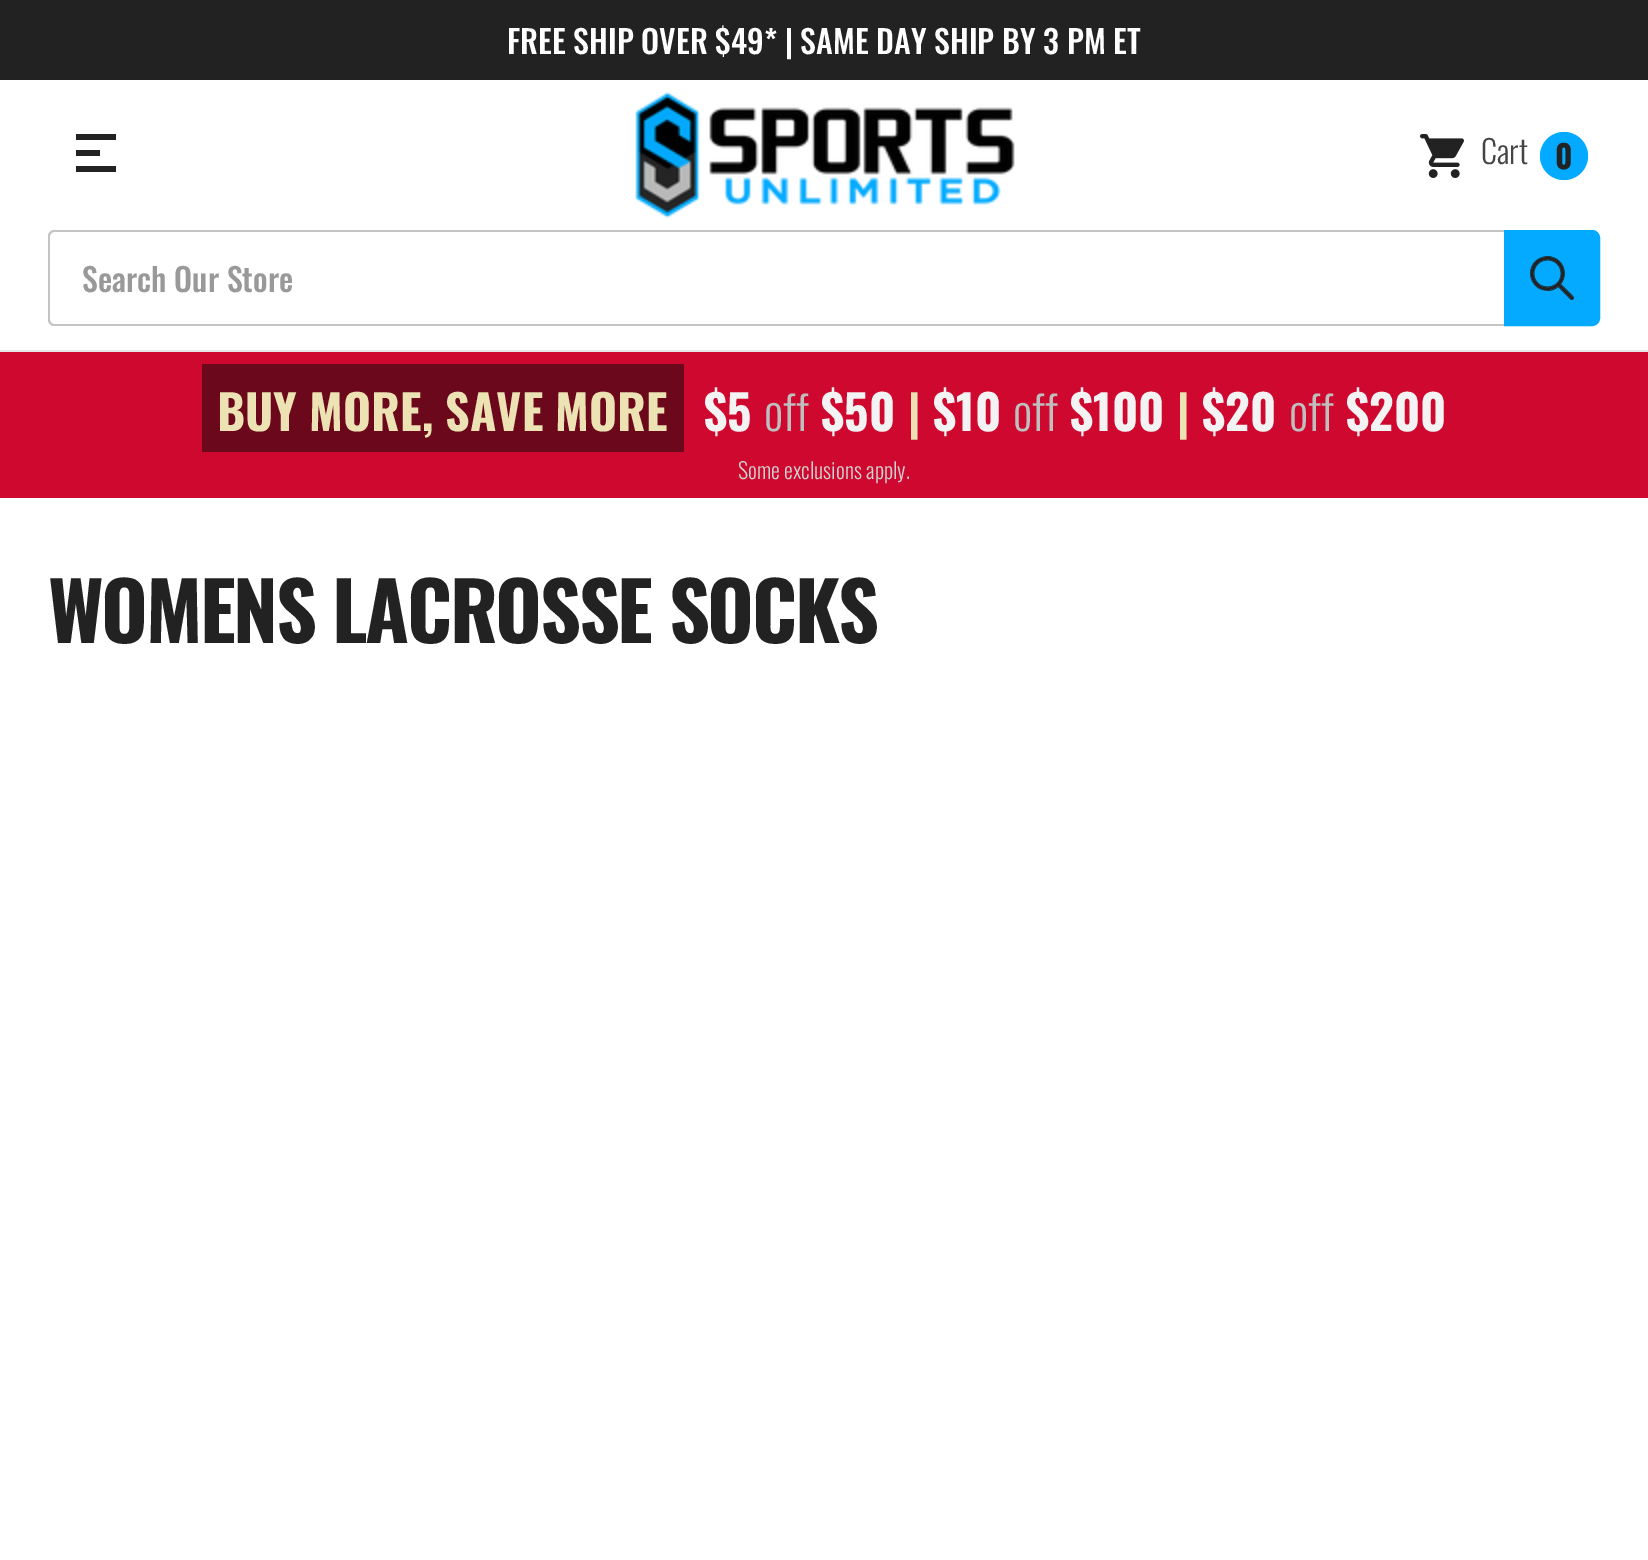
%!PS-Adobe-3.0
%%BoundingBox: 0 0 1648 1560
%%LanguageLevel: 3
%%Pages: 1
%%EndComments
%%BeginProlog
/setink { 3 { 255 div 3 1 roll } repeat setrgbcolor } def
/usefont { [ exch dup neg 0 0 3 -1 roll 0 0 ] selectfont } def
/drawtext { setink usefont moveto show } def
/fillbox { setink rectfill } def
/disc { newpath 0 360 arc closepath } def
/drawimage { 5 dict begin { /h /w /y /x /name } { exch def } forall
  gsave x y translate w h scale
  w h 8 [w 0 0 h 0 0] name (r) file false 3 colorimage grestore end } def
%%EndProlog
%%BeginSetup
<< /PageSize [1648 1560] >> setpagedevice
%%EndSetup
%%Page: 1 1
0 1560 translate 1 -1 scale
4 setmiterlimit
0 0 1648 1560 255 255 255 fillbox
0 350 1648 2 229 229 229 fillbox
0 0 1648 80 34 34 34 fillbox
(FREE SHIP OVER $49* | SAME DAY SHIP BY 3 PM ET) 507 54 /Oswald-Medium 32 255 255 255 drawtext
76 150 24 6 34 34 34 fillbox
76 134 40 6 34 34 34 fillbox
76 166 40 6 34 34 34 fillbox
(assets/img1.rgb) 635 91 380 128 drawimage
(assets/img2.rgb) 1420 134 44 44 drawimage
(Cart) 1481 164 /Oswald-Light 32 68 68 68 drawtext
4 170 255 setink
1564 156 24 disc fill
(0) 1555 169 /Oswald-Bold 32 34 34 34 drawtext
196 196 196 setink
54 230 moveto 1504 230 lineto 1504 326 lineto 54 326 lineto 51 326 48 323 48 320 curveto 48 236 lineto 48 233 51 230 54 230 curveto closepath 54 232 moveto 1504 232 lineto 1504 324 lineto 54 324 lineto 52 324 50 322 50 320 curveto 50 236 lineto 50 234 52 232 54 232 curveto closepath eofill
(Search Our Store) 82 292 /Oswald-Medium 32 153 153 153 drawtext
4 170 255 setink
1505 231 moveto 1592 231 lineto 1596 231 1599 234 1599 238 curveto 1599 318 lineto 1599 322 1596 325 1592 325 curveto 1505 325 lineto closepath gsave fill grestore
2 setlinewidth
stroke
(assets/img3.rgb) 1530 256 44 44 drawimage
0 352 1648 146 206 8 46 fillbox
202 364 482 88 107 8 27 fillbox
(BUY MORE, SAVE MORE) 217 431 /Oswald-Bold 48 236 226 180 drawtext
($5) 704 431 /Oswald-Bold 48 243 243 243 drawtext
(off) 764 431 /Oswald-Light 48 191 191 191 drawtext
($50) 821 431 /Oswald-Bold 48 243 243 243 drawtext
(|) 908 431 /Oswald-Bold 48 236 226 180 drawtext
($10) 933 431 /Oswald-Bold 48 243 243 243 drawtext
(off) 1013 431 /Oswald-Light 48 191 191 191 drawtext
($100) 1070 431 /Oswald-Bold 48 243 243 243 drawtext
(|) 1177 431 /Oswald-Bold 48 236 226 180 drawtext
($20) 1202 431 /Oswald-Bold 48 243 243 243 drawtext
(off) 1289 431 /Oswald-Light 48 191 191 191 drawtext
($200) 1346 431 /Oswald-Bold 48 243 243 243 drawtext
(Some exclusions apply.) 738 479 /Oswald-Light 22 211 211 211 drawtext
/Oswald-Bold 80 usefont
34 34 34 setink
48 643 moveto -2.4 0 (WOMENS LACROSSE SOCKS) ashow
showpage
%%EOF
